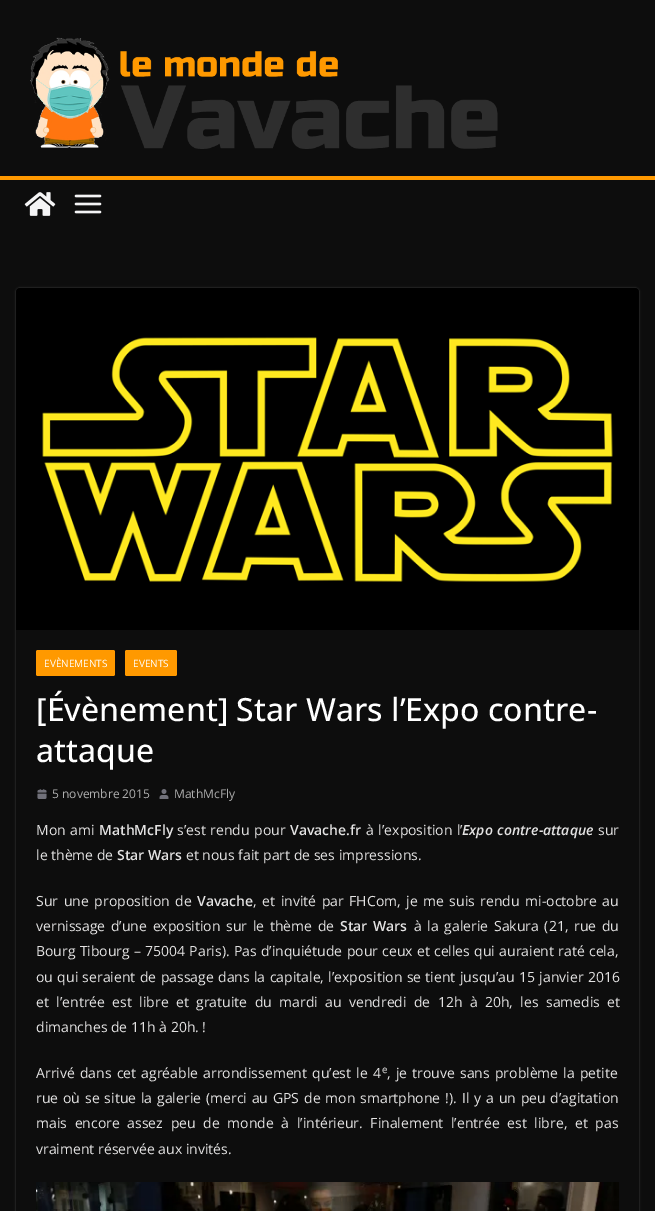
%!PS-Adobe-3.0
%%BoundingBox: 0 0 655 1211
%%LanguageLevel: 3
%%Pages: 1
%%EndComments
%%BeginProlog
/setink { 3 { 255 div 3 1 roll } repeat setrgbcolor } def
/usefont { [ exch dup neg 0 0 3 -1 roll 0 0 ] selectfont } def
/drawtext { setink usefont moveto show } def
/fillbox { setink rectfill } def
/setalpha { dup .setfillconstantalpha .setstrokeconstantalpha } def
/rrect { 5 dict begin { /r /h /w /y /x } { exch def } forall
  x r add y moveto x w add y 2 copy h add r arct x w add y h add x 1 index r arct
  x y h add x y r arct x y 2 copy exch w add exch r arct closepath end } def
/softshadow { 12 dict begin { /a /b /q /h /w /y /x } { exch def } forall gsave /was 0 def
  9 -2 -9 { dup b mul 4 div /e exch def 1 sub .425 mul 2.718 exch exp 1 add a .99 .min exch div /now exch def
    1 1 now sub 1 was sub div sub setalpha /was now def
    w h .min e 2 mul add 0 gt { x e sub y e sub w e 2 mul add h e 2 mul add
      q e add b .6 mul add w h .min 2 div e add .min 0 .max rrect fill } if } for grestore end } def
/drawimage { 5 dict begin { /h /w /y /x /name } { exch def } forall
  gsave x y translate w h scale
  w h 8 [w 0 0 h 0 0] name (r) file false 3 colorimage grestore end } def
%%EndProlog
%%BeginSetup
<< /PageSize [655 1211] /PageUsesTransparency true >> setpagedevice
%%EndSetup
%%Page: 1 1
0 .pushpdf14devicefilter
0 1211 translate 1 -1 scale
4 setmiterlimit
0 0 655 1211 13 13 13 fillbox
(assets/img1.rgb) 30 37 468 112 drawimage
0 176 655 4 255 153 0 fillbox
(assets/img2.rgb) 24 192 32 24 drawimage
(assets/img3.rgb) 74 194 28 20 drawimage
gsave
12 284 moveto 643 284 lineto 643 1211 lineto 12 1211 lineto closepath 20 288 moveto 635 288 lineto 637 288 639 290 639 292 curveto 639 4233 lineto 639 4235 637 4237 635 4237 curveto 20 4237 lineto 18 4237 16 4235 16 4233 curveto 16 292 lineto 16 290 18 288 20 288 curveto closepath eoclip newpath
255 255 255 setink
16 288 623 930 4 1 0.24 softshadow
grestore
(assets/img4.rgb) 16 288 623 342 drawimage
36 650 79 26 2 rrect fill
(EVÈNEMENTS) 44 667 /OpenSans-Regular 10 255 255 255 drawtext
255 153 0 setink
125 650 52 26 2 rrect fill
(EVENTS) 133 667 /OpenSans-Regular 10 255 255 255 drawtext
([Évènement] Star Wars l’Expo contre-) 36 721 /OpenSans-Medium 32 255 255 255 drawtext
(attaque) 36 762 /OpenSans-Medium 32 255 255 255 drawtext
(assets/img5.rgb) 37 789 10 10 drawimage
(5 novembre 2015) 52 798 /OpenSans-Regular 12 174 174 174 drawtext
(assets/img6.rgb) 159 789 10 10 drawimage
(MathMcFly) 174 798 /OpenSans-Regular 12 174 174 174 drawtext
/OpenSans-Regular 14 usefont
227 226 226 setink
36 835 moveto 1 0 32 (Mon ami) widthshow
(MathMcFly) 99 835 /OpenSans-SemiBold 14 227 226 226 drawtext
/OpenSans-Regular 14 usefont
177 835 moveto 1 0 32 (s’est rendu pour) widthshow
(Vavache.fr) 290 835 /OpenSans-SemiBold 14 227 226 226 drawtext
/OpenSans-Regular 14 usefont
366 835 moveto 1 0 32 (à l’exposition l’) widthshow
/OpenSans-SemiBoldItalic 14 usefont
462 835 moveto 1 0 32 (Expo contre-attaque) widthshow
(sur) 598 835 /OpenSans-Regular 14 227 226 226 drawtext
(le thème de) 36 860 /OpenSans-Regular 14 227 226 226 drawtext
(Star Wars) 117 860 /OpenSans-SemiBold 14 227 226 226 drawtext
(et nous fait part de ses impressions.) 186 860 /OpenSans-Regular 14 227 226 226 drawtext
36 906 moveto 2 0 32 (Sur une proposition de) widthshow
(Vavache) 197 906 /OpenSans-SemiBold 14 227 226 226 drawtext
/OpenSans-Regular 14 usefont
253 906 moveto 1.9 0 32 (, et invité par FHCom, je me suis rendu mi-octobre au) widthshow
36 931 moveto 2 0 32 (vernissage d’une exposition sur le thème de) widthshow
/OpenSans-SemiBold 14 usefont
340 931 moveto 2 0 32 (Star Wars) widthshow
/OpenSans-Regular 14 usefont
414 931 moveto 2 0 32 (à la galerie Sakura \(21, rue du) widthshow
36 956 moveto 0.6 0 32 (Bourg Tibourg – 75004 Paris\). Pas d’inquiétude pour ceux et celles qui auraient raté cela,) widthshow
36 982 moveto 0.75 0 32 (ou qui seraient de passage dans la capitale, l’exposition se tient jusqu’au 15 janvier 2016) widthshow
36 1007 moveto 3.75 0 32 (et l’entrée est libre et gratuite du mardi au vendredi de 12h à 20h, les samedis et) widthshow
(dimanches de 11h à 20h. !) 36 1032 /OpenSans-Regular 14 227 226 226 drawtext
36 1078 moveto 1.5 0 32 (Arrivé dans cet agréable arrondissement qu’est le 4) widthshow
(e) 382 1073 /OpenSans-Regular 10 227 226 226 drawtext
/OpenSans-Regular 14 usefont
387 1078 moveto 1.5 0 32 (, je trouve sans problème la petite) widthshow
36 1103 moveto 1.25 0 32 (rue où se situe la galerie \(merci au GPS de mon smartphone !\). Il y a un peu d’agitation) widthshow
36 1128 moveto 4 0 32 (mais encore assez peu de monde à l’intérieur. Finalement l’entrée est libre, et pas) widthshow
(vraiment réservée aux invités.) 36 1154 /OpenSans-Regular 14 227 226 226 drawtext
(assets/img7.rgb) 36 1182 583 29 drawimage
.poppdf14devicefilter showpage
%%EOF
